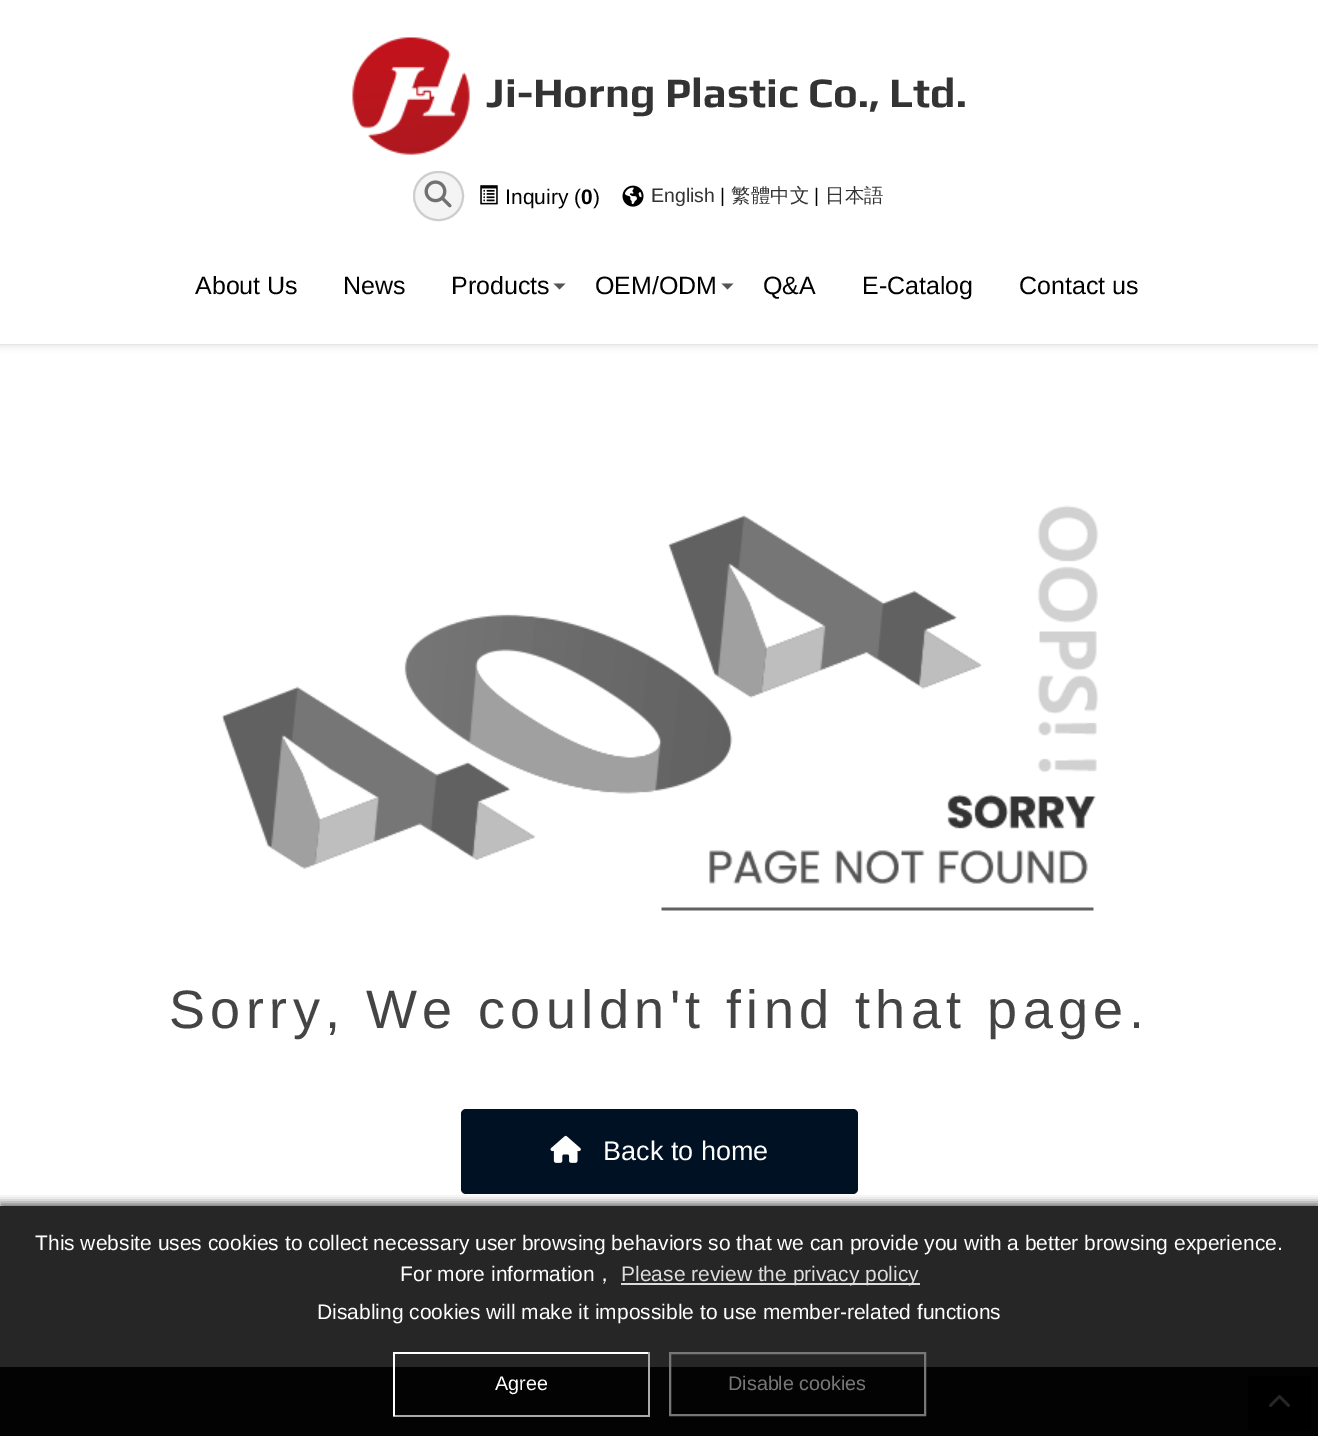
%!PS-Adobe-3.0
%%BoundingBox: 0 0 1318 1436
%%LanguageLevel: 3
%%Pages: 1
%%EndComments
%%BeginProlog
/setink { 3 { 255 div 3 1 roll } repeat setrgbcolor } def
/usefont { [ exch dup neg 0 0 3 -1 roll 0 0 ] selectfont } def
/drawtext { setink usefont moveto show } def
/fillbox { setink rectfill } def
/setalpha { dup .setfillconstantalpha .setstrokeconstantalpha } def
/rrect { 5 dict begin { /r /h /w /y /x } { exch def } forall
  x r add y moveto x w add y 2 copy h add r arct x w add y h add x 1 index r arct
  x y h add x y r arct x y 2 copy exch w add exch r arct closepath end } def
/softshadow { 12 dict begin { /a /b /q /h /w /y /x } { exch def } forall gsave /was 0 def
  9 -2 -9 { dup b mul 4 div /e exch def 1 sub .425 mul 2.718 exch exp 1 add a .99 .min exch div /now exch def
    1 1 now sub 1 was sub div sub setalpha /was now def
    w h .min e 2 mul add 0 gt { x e sub y e sub w e 2 mul add h e 2 mul add
      q e add b .6 mul add w h .min 2 div e add .min 0 .max rrect fill } if } for grestore end } def
/drawimage { 5 dict begin { /h /w /y /x /name } { exch def } forall
  gsave x y translate w h scale
  w h 8 [w 0 0 h 0 0] name (r) file false 3 colorimage grestore end } def
%%EndProlog
%%BeginSetup
<< /PageSize [1318 1436] /PageUsesTransparency true >> setpagedevice
%%EndSetup
%%Page: 1 1
0 .pushpdf14devicefilter
0 1436 translate 1 -1 scale
4 setmiterlimit
0 0 1318 1436 255 255 255 fillbox
0 1206 1318 161 38 38 38 fillbox
204 204 204 setink
0 0 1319 344 0 4 1 softshadow
0 0 1318 344 255 255 255 fillbox
(assets/img1.rgb) 352 37 118 118 drawimage
(Ji-Horng Plastic Co., Ltd.) 486 107 /Play-Bold 42 51 51 51 drawtext
244 244 244 setink
414 172 49 48 24 rrect gsave fill grestore
205 205 205 setink
2 setlinewidth
stroke
(assets/img2.rgb) 424 180 28 28 drawimage
(assets/img3.rgb) 480 185 18 20 drawimage
(Inquiry \() 505 204 /LiberationSans-Regular 21 0 0 0 drawtext
(0) 581 204 /LiberationSans-Bold 21 0 0 0 drawtext
(\)) 593 204 /LiberationSans-Regular 21 0 0 0 drawtext
(assets/img4.rgb) 622 185 22 22 drawimage
(English) 651 202 /LiberationSans-Regular 19.5 51 51 51 drawtext
(|) 720 202 /LiberationSans-Regular 19.5 0 0 0 drawtext
(繁體中文) 731 202 /WenQuanYiZenHei-Medium 19.5 51 51 51 drawtext
(|) 814 202 /LiberationSans-Regular 19.5 0 0 0 drawtext
(日本語) 825 202 /WenQuanYiZenHei-Medium 19.5 51 51 51 drawtext
(About Us) 195 294 /LiberationSans-Regular 25 0 0 0 drawtext
(News) 343 294 /LiberationSans-Regular 25 0 0 0 drawtext
(Products) 451 294 /LiberationSans-Regular 25 0 0 0 drawtext
85 85 85 setink
553.5 283.5 moveto 565.5 283.5 lineto 559.5 289.5 lineto closepath fill
(OEM/ODM) 595 294 /LiberationSans-Regular 25 0 0 0 drawtext
85 85 85 setink
721.5 283.5 moveto 733.5 283.5 lineto 727.5 289.5 lineto closepath fill
(Q&A) 763 294 /LiberationSans-Regular 25 0 0 0 drawtext
(E-Catalog) 862 294 /LiberationSans-Regular 25 0 0 0 drawtext
(Contact us) 1019 294 /LiberationSans-Regular 25 0 0 0 drawtext
(assets/img5.rgb) 222 505 876 406 drawimage
/LiberationSans-Regular 54 usefont
68 68 68 setink
169 1028 moveto 5.4 0 (Sorry, We couldn't find that page.) ashow
0 17 35 setink
461 1109 397 85 5 rrect fill
(assets/img6.rgb) 550 1135 31 28 drawimage
(Back to home) 603 1160 /LiberationSans-Regular 27 255 255 255 drawtext
0 1367 1318 69 3 3 3 fillbox
1248 1376 63 54 0 0 0 fillbox
(assets/img7.rgb) 1269 1395 21 12 drawimage
gsave
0 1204 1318 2 rectclip
0 1211 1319 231 0 4 0.5 softshadow
grestore
gsave
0 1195 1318 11 rectclip
0 1202 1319 231 0 4 0.5 softshadow
grestore
(This website uses cookies to collect necessary user browsing behaviors so that we can provide you with a better browsing experience.) 35 1250 /LiberationSans-Regular 21 255 255 255 drawtext
(For more information) 400 1281 /LiberationSans-Regular 21 255 255 255 drawtext
(，) 594 1281 /WenQuanYiZenHei-Medium 21 255 255 255 drawtext
621 1283 299 2 221 221 221 fillbox
(Please review the privacy policy) 621 1281 /LiberationSans-Regular 21 221 221 221 drawtext
(Disabling cookies will make it impossible to use member-related functions) 317 1319 /LiberationSans-Regular 21 255 255 255 drawtext
393 1352 257 2 255 255 255 fillbox
648 1352 2 64 170 170 170 fillbox
393 1415 257 2 170 170 170 fillbox
393 1352 2 64 255 255 255 fillbox
(Agree) 495 1390 /LiberationSans-Regular 19.75 255 255 255 drawtext
119 119 119 setink
670 1353 255 62 rectstroke
(Disable cookies) 728 1390 /LiberationSans-Regular 19.75 119 119 119 drawtext
.poppdf14devicefilter showpage
%%EOF
